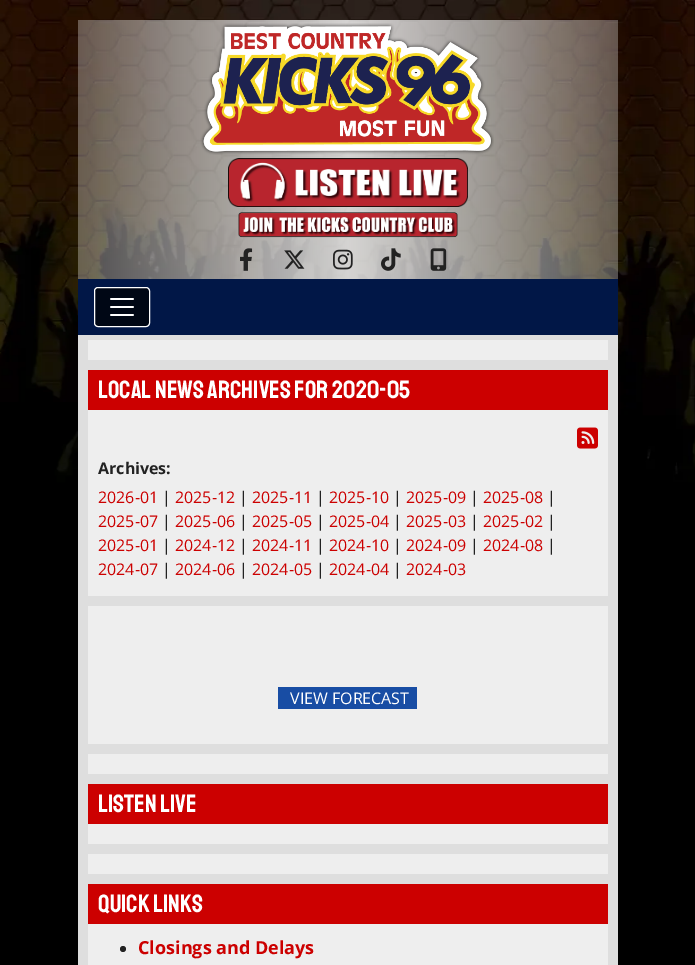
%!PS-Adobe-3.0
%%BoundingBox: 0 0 695 965
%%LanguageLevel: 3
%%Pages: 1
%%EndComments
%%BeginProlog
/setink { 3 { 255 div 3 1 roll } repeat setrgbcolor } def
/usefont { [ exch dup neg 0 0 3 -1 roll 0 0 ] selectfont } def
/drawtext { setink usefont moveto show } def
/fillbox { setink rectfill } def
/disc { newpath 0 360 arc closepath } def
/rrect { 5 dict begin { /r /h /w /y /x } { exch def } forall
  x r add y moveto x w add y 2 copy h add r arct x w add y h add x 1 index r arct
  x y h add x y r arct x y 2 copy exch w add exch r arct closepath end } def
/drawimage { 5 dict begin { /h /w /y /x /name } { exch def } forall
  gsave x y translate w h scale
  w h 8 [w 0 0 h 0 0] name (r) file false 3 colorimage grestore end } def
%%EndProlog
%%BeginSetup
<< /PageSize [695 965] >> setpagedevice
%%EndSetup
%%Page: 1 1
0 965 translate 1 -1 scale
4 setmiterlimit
0 0 695 965 0 0 0 fillbox
(assets/img1.rgb) 0 0 695 509 drawimage
(assets/img2.rgb) 200 23 294 132 drawimage
(assets/img3.rgb) 228 158 240 49 drawimage
(assets/img4.rgb) 238 212 220 26 drawimage
(assets/img5.rgb) 240 248 13 23 drawimage
(assets/img6.rgb) 284 250 21 19 drawimage
(assets/img7.rgb) 333 249 20 21 drawimage
(assets/img8.rgb) 381 248 20 23 drawimage
(assets/img9.rgb) 430 248 17 23 drawimage
78 279 540 56 1 23 71 fillbox
0 7 21 setink
94.5 287.5 55 39 3.5 rrect gsave fill grestore
255 255 255 setink
stroke
(assets/img10.rgb) 110 298 24 18 drawimage
78 335 540 630 222 222 222 fillbox
88 340 520 20 238 238 238 fillbox
88 370 520 40 204 0 0 fillbox
(LOCAL NEWS ARCHIVES FOR 2020-05) 98 398 /Staatliches-Regular 25 255 255 255 drawtext
88 410 520 186 238 238 238 fillbox
(assets/img11.rgb) 577 427 21 22 drawimage
(Archives:) 98 474 /OpenSans-Bold 16 34 34 34 drawtext
(2026-01) 98 503 /OpenSans-Regular 16 204 0 0 drawtext
(|) 162 503 /OpenSans-Regular 16 34 34 34 drawtext
(2025-12) 175 503 /OpenSans-Regular 16 204 0 0 drawtext
(|) 239 503 /OpenSans-Regular 16 34 34 34 drawtext
(2025-11) 252 503 /OpenSans-Regular 16 204 0 0 drawtext
(|) 316 503 /OpenSans-Regular 16 34 34 34 drawtext
(2025-10) 329 503 /OpenSans-Regular 16 204 0 0 drawtext
(|) 393 503 /OpenSans-Regular 16 34 34 34 drawtext
(2025-09) 406 503 /OpenSans-Regular 16 204 0 0 drawtext
(|) 470 503 /OpenSans-Regular 16 34 34 34 drawtext
(2025-08) 483 503 /OpenSans-Regular 16 204 0 0 drawtext
(|) 547 503 /OpenSans-Regular 16 34 34 34 drawtext
(2025-07) 98 527 /OpenSans-Regular 16 204 0 0 drawtext
(|) 162 527 /OpenSans-Regular 16 34 34 34 drawtext
(2025-06) 175 527 /OpenSans-Regular 16 204 0 0 drawtext
(|) 239 527 /OpenSans-Regular 16 34 34 34 drawtext
(2025-05) 252 527 /OpenSans-Regular 16 204 0 0 drawtext
(|) 316 527 /OpenSans-Regular 16 34 34 34 drawtext
(2025-04) 329 527 /OpenSans-Regular 16 204 0 0 drawtext
(|) 393 527 /OpenSans-Regular 16 34 34 34 drawtext
(2025-03) 406 527 /OpenSans-Regular 16 204 0 0 drawtext
(|) 470 527 /OpenSans-Regular 16 34 34 34 drawtext
(2025-02) 483 527 /OpenSans-Regular 16 204 0 0 drawtext
(|) 547 527 /OpenSans-Regular 16 34 34 34 drawtext
(2025-01) 98 551 /OpenSans-Regular 16 204 0 0 drawtext
(|) 162 551 /OpenSans-Regular 16 34 34 34 drawtext
(2024-12) 175 551 /OpenSans-Regular 16 204 0 0 drawtext
(|) 239 551 /OpenSans-Regular 16 34 34 34 drawtext
(2024-11) 252 551 /OpenSans-Regular 16 204 0 0 drawtext
(|) 316 551 /OpenSans-Regular 16 34 34 34 drawtext
(2024-10) 329 551 /OpenSans-Regular 16 204 0 0 drawtext
(|) 393 551 /OpenSans-Regular 16 34 34 34 drawtext
(2024-09) 406 551 /OpenSans-Regular 16 204 0 0 drawtext
(|) 470 551 /OpenSans-Regular 16 34 34 34 drawtext
(2024-08) 483 551 /OpenSans-Regular 16 204 0 0 drawtext
(|) 547 551 /OpenSans-Regular 16 34 34 34 drawtext
(2024-07) 98 575 /OpenSans-Regular 16 204 0 0 drawtext
(|) 162 575 /OpenSans-Regular 16 34 34 34 drawtext
(2024-06) 175 575 /OpenSans-Regular 16 204 0 0 drawtext
(|) 239 575 /OpenSans-Regular 16 34 34 34 drawtext
(2024-05) 252 575 /OpenSans-Regular 16 204 0 0 drawtext
(|) 316 575 /OpenSans-Regular 16 34 34 34 drawtext
(2024-04) 329 575 /OpenSans-Regular 16 204 0 0 drawtext
(|) 393 575 /OpenSans-Regular 16 34 34 34 drawtext
(2024-03) 406 575 /OpenSans-Regular 16 204 0 0 drawtext
88 606 520 138 238 238 238 fillbox
278 687 139 22 24 77 164 fillbox
(VIEW FORECAST) 290 704 /OpenSans-Regular 16 255 255 255 drawtext
88 754 520 20 238 238 238 fillbox
88 784 520 40 204 0 0 fillbox
(LISTEN LIVE) 98 812 /Staatliches-Regular 25 255 255 255 drawtext
88 824 520 20 238 238 238 fillbox
88 854 520 20 238 238 238 fillbox
88 884 520 40 204 0 0 fillbox
(QUICK LINKS) 98 912 /Staatliches-Regular 25 255 255 255 drawtext
88 924 520 41 238 238 238 fillbox
34 34 34 setink
123 949 3 disc fill
(Closings and Delays) 138 954 /OpenSans-Bold 18 204 0 0 drawtext
showpage
%%EOF
